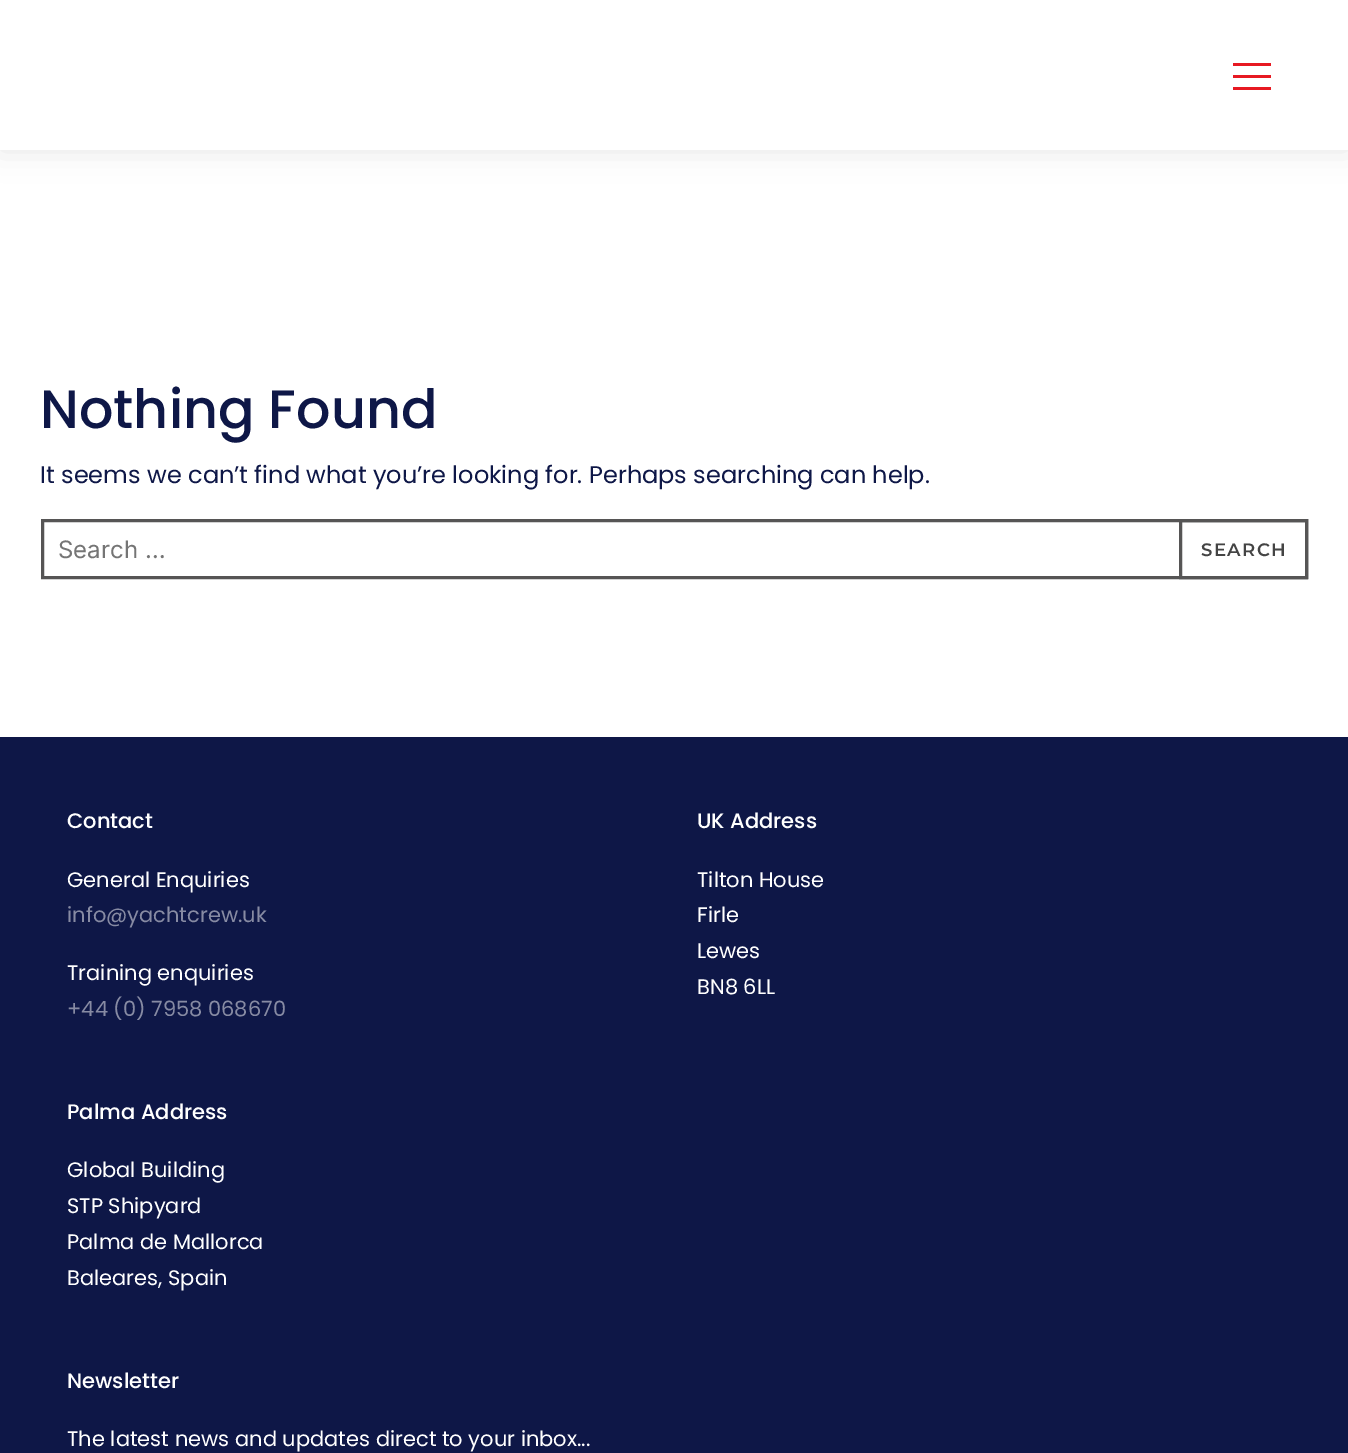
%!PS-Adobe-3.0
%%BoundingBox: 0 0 1348 1453
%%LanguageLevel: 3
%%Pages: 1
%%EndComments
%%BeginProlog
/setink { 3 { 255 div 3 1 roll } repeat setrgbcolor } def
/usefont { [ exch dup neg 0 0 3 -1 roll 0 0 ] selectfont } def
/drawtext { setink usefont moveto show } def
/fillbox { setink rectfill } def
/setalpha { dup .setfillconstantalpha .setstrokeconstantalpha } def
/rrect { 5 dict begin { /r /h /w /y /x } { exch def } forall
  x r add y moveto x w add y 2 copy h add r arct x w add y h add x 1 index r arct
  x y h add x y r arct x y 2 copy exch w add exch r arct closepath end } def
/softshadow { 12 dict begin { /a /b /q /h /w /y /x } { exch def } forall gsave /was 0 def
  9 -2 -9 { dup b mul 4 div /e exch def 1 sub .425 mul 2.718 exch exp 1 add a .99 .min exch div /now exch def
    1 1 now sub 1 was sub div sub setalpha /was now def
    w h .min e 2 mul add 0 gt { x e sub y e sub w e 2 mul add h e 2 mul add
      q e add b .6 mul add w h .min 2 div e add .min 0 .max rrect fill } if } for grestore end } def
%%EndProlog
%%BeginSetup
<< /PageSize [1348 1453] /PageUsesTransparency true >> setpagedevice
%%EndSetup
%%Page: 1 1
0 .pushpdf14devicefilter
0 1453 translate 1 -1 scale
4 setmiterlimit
0 0 1348 1453 255 255 255 fillbox
0 0 0 setink
0 0 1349 150 0 15 0.1 softshadow
0 0 1348 150 255 255 255 fillbox
1233 63 38 3 231 25 34 fillbox
1233 75 38 3 231 25 34 fillbox
1233 87 38 3 231 25 34 fillbox
(Nothing Found) 40 428 /Poppins-Medium 54 14 23 71 drawtext
(It seems we can’t find what you’re looking for. Perhaps searching can help.) 40 483 /Poppins-Regular 24 14 23 71 drawtext
86 85 85 setink
3 setlinewidth
42.5 520.5 1264 57 rectstroke
(Search …) 58 558 /Inter-Regular 24 117 117 117 drawtext
86 85 85 setink
1180.5 520.5 126 57 rectstroke
/Montserrat-SemiBold 18 usefont
68 68 68 setink
1201 556 moveto 1.5 0 (SEARCH) ashow
0 737 1348 716 14 23 71 fillbox
(Contact) 67 828 /Poppins-Medium 21 255 255 255 drawtext
(General Enquiries) 67 887 /Poppins-Regular 21 255 255 255 drawtext
(info@yachtcrew.uk) 67 922 /Poppins-Regular 21 135 139 163 drawtext
(Training enquiries) 67 980 /Poppins-Regular 21 255 255 255 drawtext
(+44 \(0\) 7958 068670) 67 1016 /Poppins-Regular 21 135 139 163 drawtext
(UK Address) 697 828 /Poppins-Medium 21 255 255 255 drawtext
(Tilton House) 697 887 /Poppins-Regular 21 255 255 255 drawtext
(Firle) 697 922 /Poppins-Regular 21 255 255 255 drawtext
(Lewes) 697 958 /Poppins-Regular 21 255 255 255 drawtext
(BN8 6LL) 697 994 /Poppins-Regular 21 255 255 255 drawtext
(Palma Address) 67 1119 /Poppins-Medium 21 255 255 255 drawtext
(Global Building) 67 1177 /Poppins-Regular 21 255 255 255 drawtext
(STP Shipyard) 67 1213 /Poppins-Regular 21 255 255 255 drawtext
(Palma de Mallorca) 67 1249 /Poppins-Regular 21 255 255 255 drawtext
(Baleares, Spain) 67 1285 /Poppins-Regular 21 255 255 255 drawtext
(Newsletter) 67 1388 /Poppins-Medium 21 255 255 255 drawtext
(The latest news and updates direct to your inbox...) 67 1446 /Poppins-Regular 21 255 255 255 drawtext
.poppdf14devicefilter showpage
%%EOF
